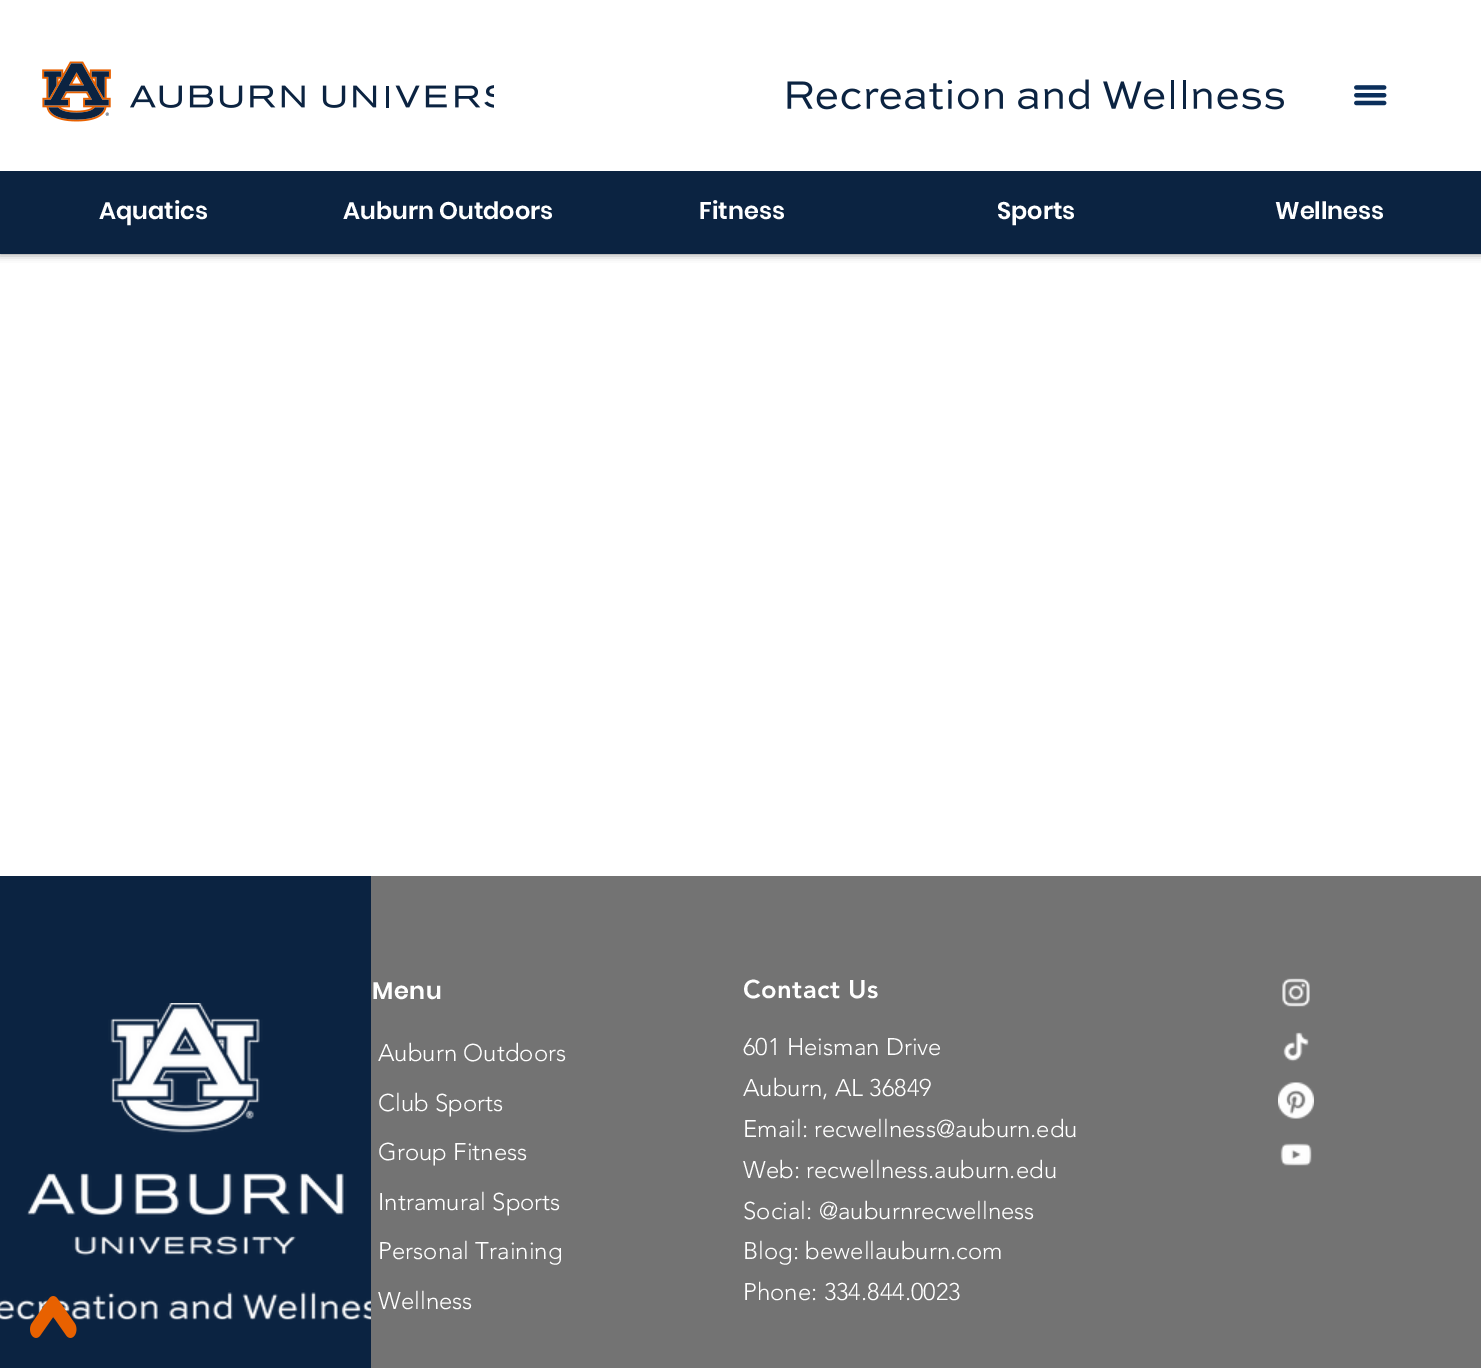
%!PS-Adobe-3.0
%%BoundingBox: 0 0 1481 1368
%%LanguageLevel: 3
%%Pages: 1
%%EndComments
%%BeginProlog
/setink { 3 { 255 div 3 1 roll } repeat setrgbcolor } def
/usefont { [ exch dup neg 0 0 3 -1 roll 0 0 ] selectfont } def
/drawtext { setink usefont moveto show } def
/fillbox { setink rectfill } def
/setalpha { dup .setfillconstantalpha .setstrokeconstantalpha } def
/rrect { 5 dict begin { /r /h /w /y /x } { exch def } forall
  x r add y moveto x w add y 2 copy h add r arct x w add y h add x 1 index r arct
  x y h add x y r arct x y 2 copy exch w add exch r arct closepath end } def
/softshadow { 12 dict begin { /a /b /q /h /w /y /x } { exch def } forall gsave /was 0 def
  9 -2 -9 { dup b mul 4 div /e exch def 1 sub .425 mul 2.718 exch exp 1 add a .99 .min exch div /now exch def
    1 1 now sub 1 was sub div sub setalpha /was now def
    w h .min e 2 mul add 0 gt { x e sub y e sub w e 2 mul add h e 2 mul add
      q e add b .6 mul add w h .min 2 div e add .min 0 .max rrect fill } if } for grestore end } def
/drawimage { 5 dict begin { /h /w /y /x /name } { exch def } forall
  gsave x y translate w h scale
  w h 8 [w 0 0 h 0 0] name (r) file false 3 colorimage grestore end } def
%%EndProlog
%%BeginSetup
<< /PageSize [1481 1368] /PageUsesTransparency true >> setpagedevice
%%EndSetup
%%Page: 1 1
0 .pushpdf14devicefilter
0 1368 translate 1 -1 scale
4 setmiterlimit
0 0 1481 1368 255 255 255 fillbox
0 0 0 setink
0 0 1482 254 0 4 0.5 softshadow
0 0 1481 171 255 255 255 fillbox
(assets/img1.rgb) 42 61 452 61 drawimage
(assets/img2.rgb) 787 79 497 31 drawimage
(assets/img3.rgb) 1354 85 33 21 drawimage
0 171 1481 83 11 35 65 fillbox
(Aquatics) 99 219 /Poppins-SemiBold 24 255 255 255 drawtext
(Auburn Outdoors) 343 219 /Poppins-SemiBold 24 255 255 255 drawtext
(Fitness) 699 219 /Poppins-SemiBold 24 255 255 255 drawtext
(Sports) 997 219 /Poppins-SemiBold 24 255 255 255 drawtext
(Wellness) 1275 219 /Poppins-SemiBold 24 255 255 255 drawtext
0 876 371 492 11 35 65 fillbox
(assets/img4.rgb) 0 1003 371 317 drawimage
371 876 1110 492 115 115 115 fillbox
255 255 255 setink
372 999 moveto 0.5 0 (Menu) ashow
(Auburn Outdoors) 378 1061 /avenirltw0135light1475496-Light 24 255 255 255 drawtext
(Club Sports) 378 1111 /avenirltw0135light1475496-Light 24 255 255 255 drawtext
(Group Fitness) 378 1160 /avenirltw0135light1475496-Light 24 255 255 255 drawtext
(Intramural Sports) 378 1210 /avenirltw0135light1475496-Light 24 255 255 255 drawtext
(Personal Training) 378 1259 /avenirltw0135light1475496-Light 24 255 255 255 drawtext
(Wellness) 378 1309 /avenirltw0135light1475496-Light 24 255 255 255 drawtext
/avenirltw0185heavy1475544-Black 25.5 usefont
743 998 moveto 0.5 0 (Contact Us) ashow
(601 Heisman Drive) 743 1055 /avenirltw0135light1475496-Light 24 255 255 255 drawtext
(Auburn, AL 36849) 743 1096 /avenirltw0135light1475496-Light 24 255 255 255 drawtext
(Email: recwellness@auburn.edu) 743 1137 /avenirltw0135light1475496-Light 24 255 255 255 drawtext
(Web: recwellness.auburn.edu) 743 1178 /avenirltw0135light1475496-Light 24 255 255 255 drawtext
(Social: @auburnrecwellness) 743 1219 /avenirltw0135light1475496-Light 24 255 255 255 drawtext
(Blog: bewellauburn.com) 743 1259 /avenirltw0135light1475496-Light 24 255 255 255 drawtext
(Phone: 334.844.0023) 743 1300 /avenirltw0135light1475496-Light 24 255 255 255 drawtext
(assets/img5.rgb) 1282 978 28 29 drawimage
(assets/img6.rgb) 1283 1032 26 30 drawimage
(assets/img7.rgb) 1278 1082 36 37 drawimage
(assets/img8.rgb) 1280 1143 32 23 drawimage
(assets/img9.rgb) 30 1296 47 42 drawimage
.poppdf14devicefilter showpage
%%EOF
